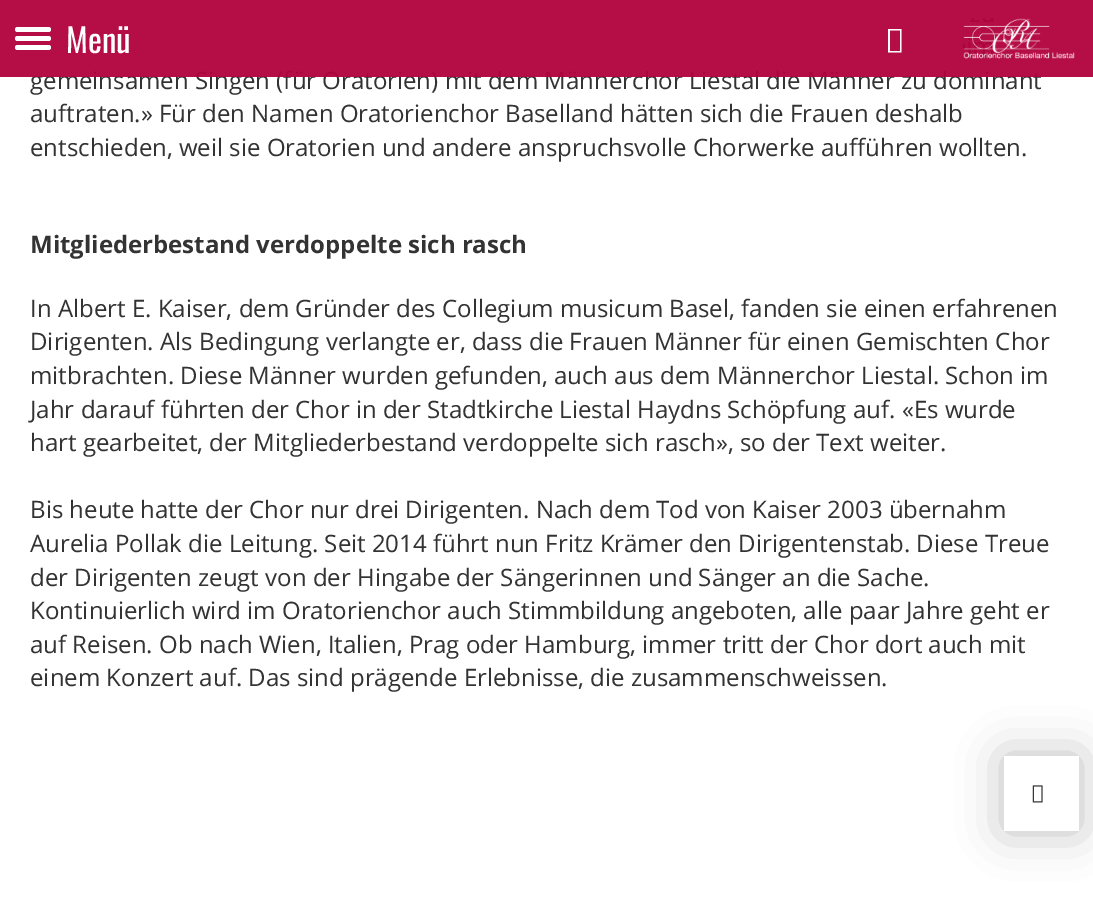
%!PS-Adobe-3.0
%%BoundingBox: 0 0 1093 905
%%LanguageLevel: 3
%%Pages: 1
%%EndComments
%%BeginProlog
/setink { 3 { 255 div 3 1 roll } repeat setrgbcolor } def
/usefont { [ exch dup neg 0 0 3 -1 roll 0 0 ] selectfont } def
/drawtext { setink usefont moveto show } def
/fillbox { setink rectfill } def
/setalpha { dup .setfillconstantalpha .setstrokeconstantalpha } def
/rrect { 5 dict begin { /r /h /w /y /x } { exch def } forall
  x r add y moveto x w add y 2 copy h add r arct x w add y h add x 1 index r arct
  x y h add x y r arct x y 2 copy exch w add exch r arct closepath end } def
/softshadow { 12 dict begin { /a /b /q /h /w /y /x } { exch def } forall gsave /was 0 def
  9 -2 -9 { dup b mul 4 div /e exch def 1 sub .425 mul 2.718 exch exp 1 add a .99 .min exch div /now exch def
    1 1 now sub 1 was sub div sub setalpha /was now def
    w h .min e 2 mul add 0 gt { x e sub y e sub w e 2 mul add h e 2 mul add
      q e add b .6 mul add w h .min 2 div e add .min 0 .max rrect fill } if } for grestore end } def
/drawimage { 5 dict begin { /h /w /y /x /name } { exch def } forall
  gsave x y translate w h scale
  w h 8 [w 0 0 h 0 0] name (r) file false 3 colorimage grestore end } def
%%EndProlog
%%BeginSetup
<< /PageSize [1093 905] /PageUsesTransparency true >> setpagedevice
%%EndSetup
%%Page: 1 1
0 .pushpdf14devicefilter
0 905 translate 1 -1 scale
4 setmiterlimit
0 0 1093 905 255 255 255 fillbox
(gemeinsamen Singen \(für Oratorien\) mit dem Männerchor Liestal die Männer zu dominant) 30 89 /OpenSans-Regular 24 51 51 51 drawtext
0.95 setalpha
0 0 1093 77 177 1 60 fillbox
1 setalpha
255 255 255 setink
15 27 36 5 2.5 rrect fill
15 36 36 5 2.5 rrect fill
15 45 36 5 2.5 rrect fill
(Menü) 66 53 /Oswald-Regular 33 255 255 255 drawtext
888 52.5 moveto 888 29 lineto 901.5 29 lineto 901.5 52.5 lineto closepath 890 51 moveto 900 51 lineto 900 30.5 lineto 890 30.5 lineto closepath fill
(assets/img1.rgb) 963 18 112 41 drawimage
(auftraten.» Für den Namen Oratorienchor Baselland hätten sich die Frauen deshalb) 30 122 /OpenSans-Regular 24 51 51 51 drawtext
(entschieden, weil sie Oratorien und andere anspruchsvolle Chorwerke aufführen wollten.) 30 156 /OpenSans-Regular 24 51 51 51 drawtext
(Mitgliederbestand verdoppelte sich rasch) 30 253 /OpenSans-Bold 24 51 51 51 drawtext
(In Albert E. Kaiser, dem Gründer des Collegium musicum Basel, fanden sie einen erfahrenen) 30 317 /OpenSans-Regular 24 51 51 51 drawtext
(Dirigenten. Als Bedingung verlangte er, dass die Frauen Männer für einen Gemischten Chor) 30 350 /OpenSans-Regular 24 51 51 51 drawtext
(mitbrachten. Diese Männer wurden gefunden, auch aus dem Männerchor Liestal. Schon im) 30 384 /OpenSans-Regular 24 51 51 51 drawtext
(Jahr darauf führten der Chor in der Stadtkirche Liestal Haydns Schöpfung auf. «Es wurde) 30 418 /OpenSans-Regular 24 51 51 51 drawtext
(hart gearbeitet, der Mitgliederbestand verdoppelte sich rasch», so der Text weiter.) 30 451 /OpenSans-Regular 24 51 51 51 drawtext
(Bis heute hatte der Chor nur drei Dirigenten. Nach dem Tod von Kaiser 2003 übernahm) 30 518 /OpenSans-Regular 24 51 51 51 drawtext
(Aurelia Pollak die Leitung. Seit 2014 führt nun Fritz Krämer den Dirigentenstab. Diese Treue) 30 552 /OpenSans-Regular 24 51 51 51 drawtext
(der Dirigenten zeugt von der Hingabe der Sängerinnen und Sänger an die Sache.) 30 586 /OpenSans-Regular 24 51 51 51 drawtext
(Kontinuierlich wird im Oratorienchor auch Stimmbildung angeboten, alle paar Jahre geht er) 30 619 /OpenSans-Regular 24 51 51 51 drawtext
(auf Reisen. Ob nach Wien, Italien, Prag oder Hamburg, immer tritt der Chor dort auch mit) 30 653 /OpenSans-Regular 24 51 51 51 drawtext
(einem Konzert auf. Das sind prägende Erlebnisse, die zusammenschweissen.) 30 686 /OpenSans-Regular 24 51 51 51 drawtext
gsave
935 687 moveto 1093 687 lineto 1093 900 lineto 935 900 lineto closepath 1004 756 moveto 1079 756 lineto 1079 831 lineto 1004 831 lineto closepath eoclip newpath
0 0 0 setink
1004 756 75 75 0 22.5 0.25 softshadow
grestore
0.8 setalpha
1078 756 1 75 255 255 255 fillbox
1 setalpha
(assets/img2.rgb) 1032 785 11 18 drawimage
.poppdf14devicefilter showpage
%%EOF
